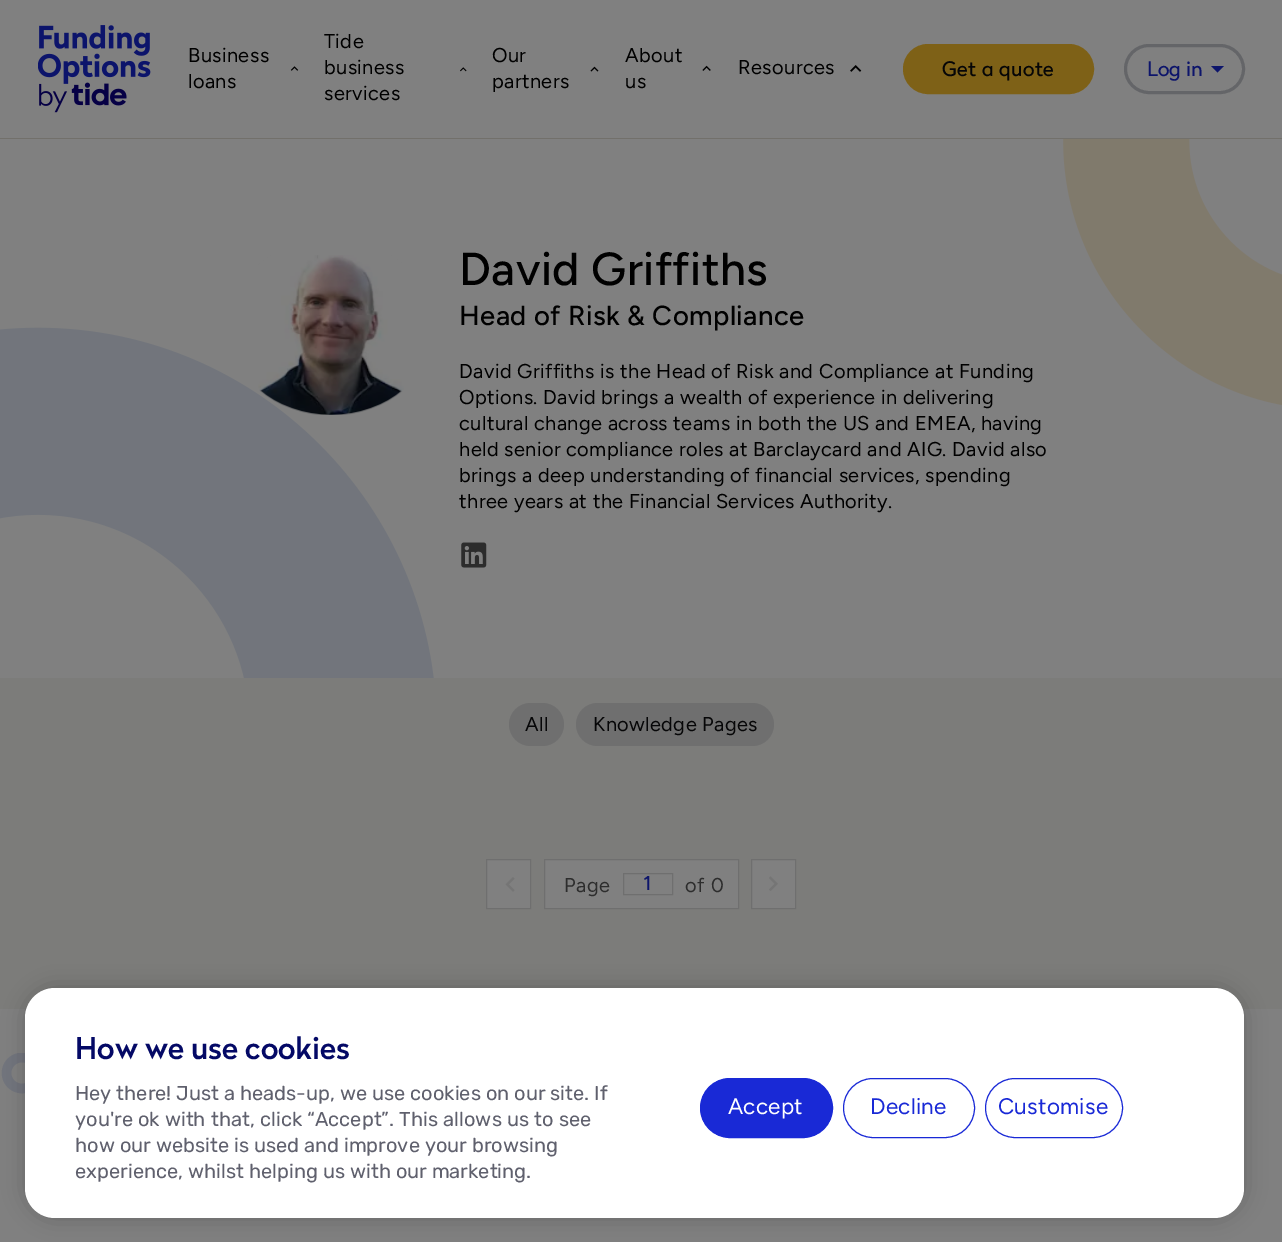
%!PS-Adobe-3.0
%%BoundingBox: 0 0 1282 1242
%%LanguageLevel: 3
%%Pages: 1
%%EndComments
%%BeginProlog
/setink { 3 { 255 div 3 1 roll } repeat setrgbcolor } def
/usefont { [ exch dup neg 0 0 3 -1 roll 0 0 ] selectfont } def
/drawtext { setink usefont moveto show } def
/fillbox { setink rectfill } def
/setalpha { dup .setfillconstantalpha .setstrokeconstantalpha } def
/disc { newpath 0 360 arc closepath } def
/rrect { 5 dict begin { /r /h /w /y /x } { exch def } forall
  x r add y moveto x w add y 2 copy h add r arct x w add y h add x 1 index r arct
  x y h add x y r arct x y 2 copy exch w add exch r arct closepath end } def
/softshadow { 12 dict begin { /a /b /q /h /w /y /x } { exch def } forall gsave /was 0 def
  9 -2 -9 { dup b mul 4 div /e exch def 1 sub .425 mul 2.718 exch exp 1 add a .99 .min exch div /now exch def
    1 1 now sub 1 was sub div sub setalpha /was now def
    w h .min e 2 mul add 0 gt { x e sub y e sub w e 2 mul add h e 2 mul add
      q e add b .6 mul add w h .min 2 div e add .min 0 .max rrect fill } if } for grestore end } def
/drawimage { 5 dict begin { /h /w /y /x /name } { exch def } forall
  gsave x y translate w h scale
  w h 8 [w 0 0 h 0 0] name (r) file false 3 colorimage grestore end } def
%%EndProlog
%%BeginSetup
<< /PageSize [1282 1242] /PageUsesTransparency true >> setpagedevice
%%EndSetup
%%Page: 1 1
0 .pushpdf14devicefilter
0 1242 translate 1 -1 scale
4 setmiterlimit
0 0 1282 1242 128 128 128 fillbox
0 138 1282 1 114 112 107 fillbox
(assets/img1.rgb) 38 25 113 88 drawimage
/Figtree-Regular 20 usefont
0 0 0 setink
188 62 moveto 0.4 0 (Business) ashow
188 88 moveto 0.4 0 (loans) ashow
(assets/img2.rgb) 290 66 9 5 drawimage
324 48 moveto 0.4 0 (Tide) ashow
324 74 moveto 0.4 0 (business) ashow
324 100 moveto 0.4 0 (services) ashow
(assets/img3.rgb) 460 67 7 5 drawimage
492 62 moveto 0.4 0 (Our) ashow
492 88 moveto 0.4 0 (partners) ashow
(assets/img4.rgb) 590 66 9 6 drawimage
625 62 moveto 0.4 0 (About) ashow
625 88 moveto 0.4 0 (us) ashow
(assets/img5.rgb) 702 65 9 6 drawimage
738 74 moveto 0.4 0 (Resources) ashow
(assets/img6.rgb) 850 65 12 7 drawimage
126 97 23 setink
904.5 45.5 188 47 23.5 rrect gsave fill grestore
3 setlinewidth
stroke
/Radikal-Regular 20 usefont
6 6 7 setink
942 76 moveto 0.4 0 (Get a quote) ashow
100 101 104 setink
1125.5 45.5 118 47 23.5 rrect stroke
(Log in) 1147 76 /Radikal-Regular 20 13 21 107 drawtext
1211 66 moveto 1217.5 72.5 lineto 1224 66 lineto closepath eofill
(assets/img7.rgb) 0 139 1282 539 drawimage
(assets/img8.rgb) 258 255 146 160 drawimage
/Figtree-Medium 46.25 usefont
0 0 0 setink
459 285 moveto 0.4 0 (David Griffiths) ashow
/Figtree-Medium 27.5 usefont
459 325 moveto 0.4 0 (Head of Risk & Compliance) ashow
/Figtree-Regular 20 usefont
459 378 moveto 0.4 0 (David Griffiths is the Head of Risk and Compliance at Funding) ashow
459 404 moveto 0.4 0 (Options. David brings a wealth of experience in delivering) ashow
459 430 moveto 0.4 0 (cultural change across teams in both the US and EMEA, having) ashow
459 456 moveto 0.4 0 (held senior compliance roles at Barclaycard and AIG. David also) ashow
459 482 moveto 0.4 0 (brings a deep understanding of financial services, spending) ashow
459 508 moveto 0.4 0 (three years at the Financial Services Authority.) ashow
(assets/img9.rgb) 461 542 26 26 drawimage
0 678 1282 331 124 124 122 fillbox
111 111 111 setink
509 703 55 43 21.5 rrect fill
6 6 7 setink
525 731 moveto 0.4 0 (All) ashow
111 111 111 setink
576 703 198 43 21.5 rrect fill
6 6 7 setink
593 731 moveto 0.4 0 (Knowledge Pages) ashow
128 128 128 setink
486.5 859.5 moveto 530.5 859.5 lineto 530.5 908.5 lineto 486.5 908.5 lineto closepath gsave fill grestore
111 111 111 setink
1 setlinewidth
stroke
(assets/img10.rgb) 505 877 10 15 drawimage
128 128 128 setink
544.5 859.5 moveto 738.5 859.5 lineto 738.5 908.5 lineto 544.5 908.5 lineto closepath gsave fill grestore
111 111 111 setink
stroke
45 45 45 setink
564 892 moveto 0.4 0 (Page) ashow
111 111 111 setink
623.5 873.5 49 21 rectstroke
/Figtree-Medium 20 usefont
13 21 107 setink
643 890 moveto 0.4 0 (1) ashow
/Figtree-Regular 20 usefont
45 45 45 setink
685 892 moveto 0.4 0 (of) ashow
711 892 moveto 0.4 0 (0) ashow
128 128 128 setink
751.5 859.5 moveto 795.5 859.5 lineto 795.5 908.5 lineto 751.5 908.5 lineto closepath gsave fill grestore
111 111 111 setink
stroke
(assets/img11.rgb) 769 876 9 15 drawimage
gsave
1 1053 42 41 rectclip
114 117 125 setink
9.5 setlinewidth
22 1073 15.5 disc stroke
grestore
0 0 0 setink
25 988 1219 230 30 11 0.2 softshadow
255 255 255 setink
25 988 1219 230 30 rrect fill
(How we use cookies) 75 1059 /Radikal-Medium 30 4 9 102 drawtext
(Hey there! Just a heads-up, we use cookies on our site. If) 75 1100 /Rubik-Regular 20 95 96 109 drawtext
75 1126 moveto 0.25 0 32 (you're ok with that, click “Accept”. This allows us to see) widthshow
(how our website is used and improve your browsing) 75 1152 /Rubik-Regular 20 95 96 109 drawtext
(experience, whilst helping us with our marketing.) 75 1178 /Rubik-Regular 20 95 96 109 drawtext
25 41 214 setink
700.5 1078.5 132 59 29.5 rrect gsave fill grestore
stroke
/Figtree-Regular 22.5 usefont
255 255 255 setink
728 1114 moveto 0.25 0 (Accept) ashow
25 41 214 setink
843.5 1078.5 131 59 29.5 rrect stroke
870 1114 moveto 0.25 0 (Decline) ashow
985.5 1078.5 137 59 29.5 rrect stroke
998 1114 moveto 0.25 0 (Customise) ashow
.poppdf14devicefilter showpage
%%EOF
